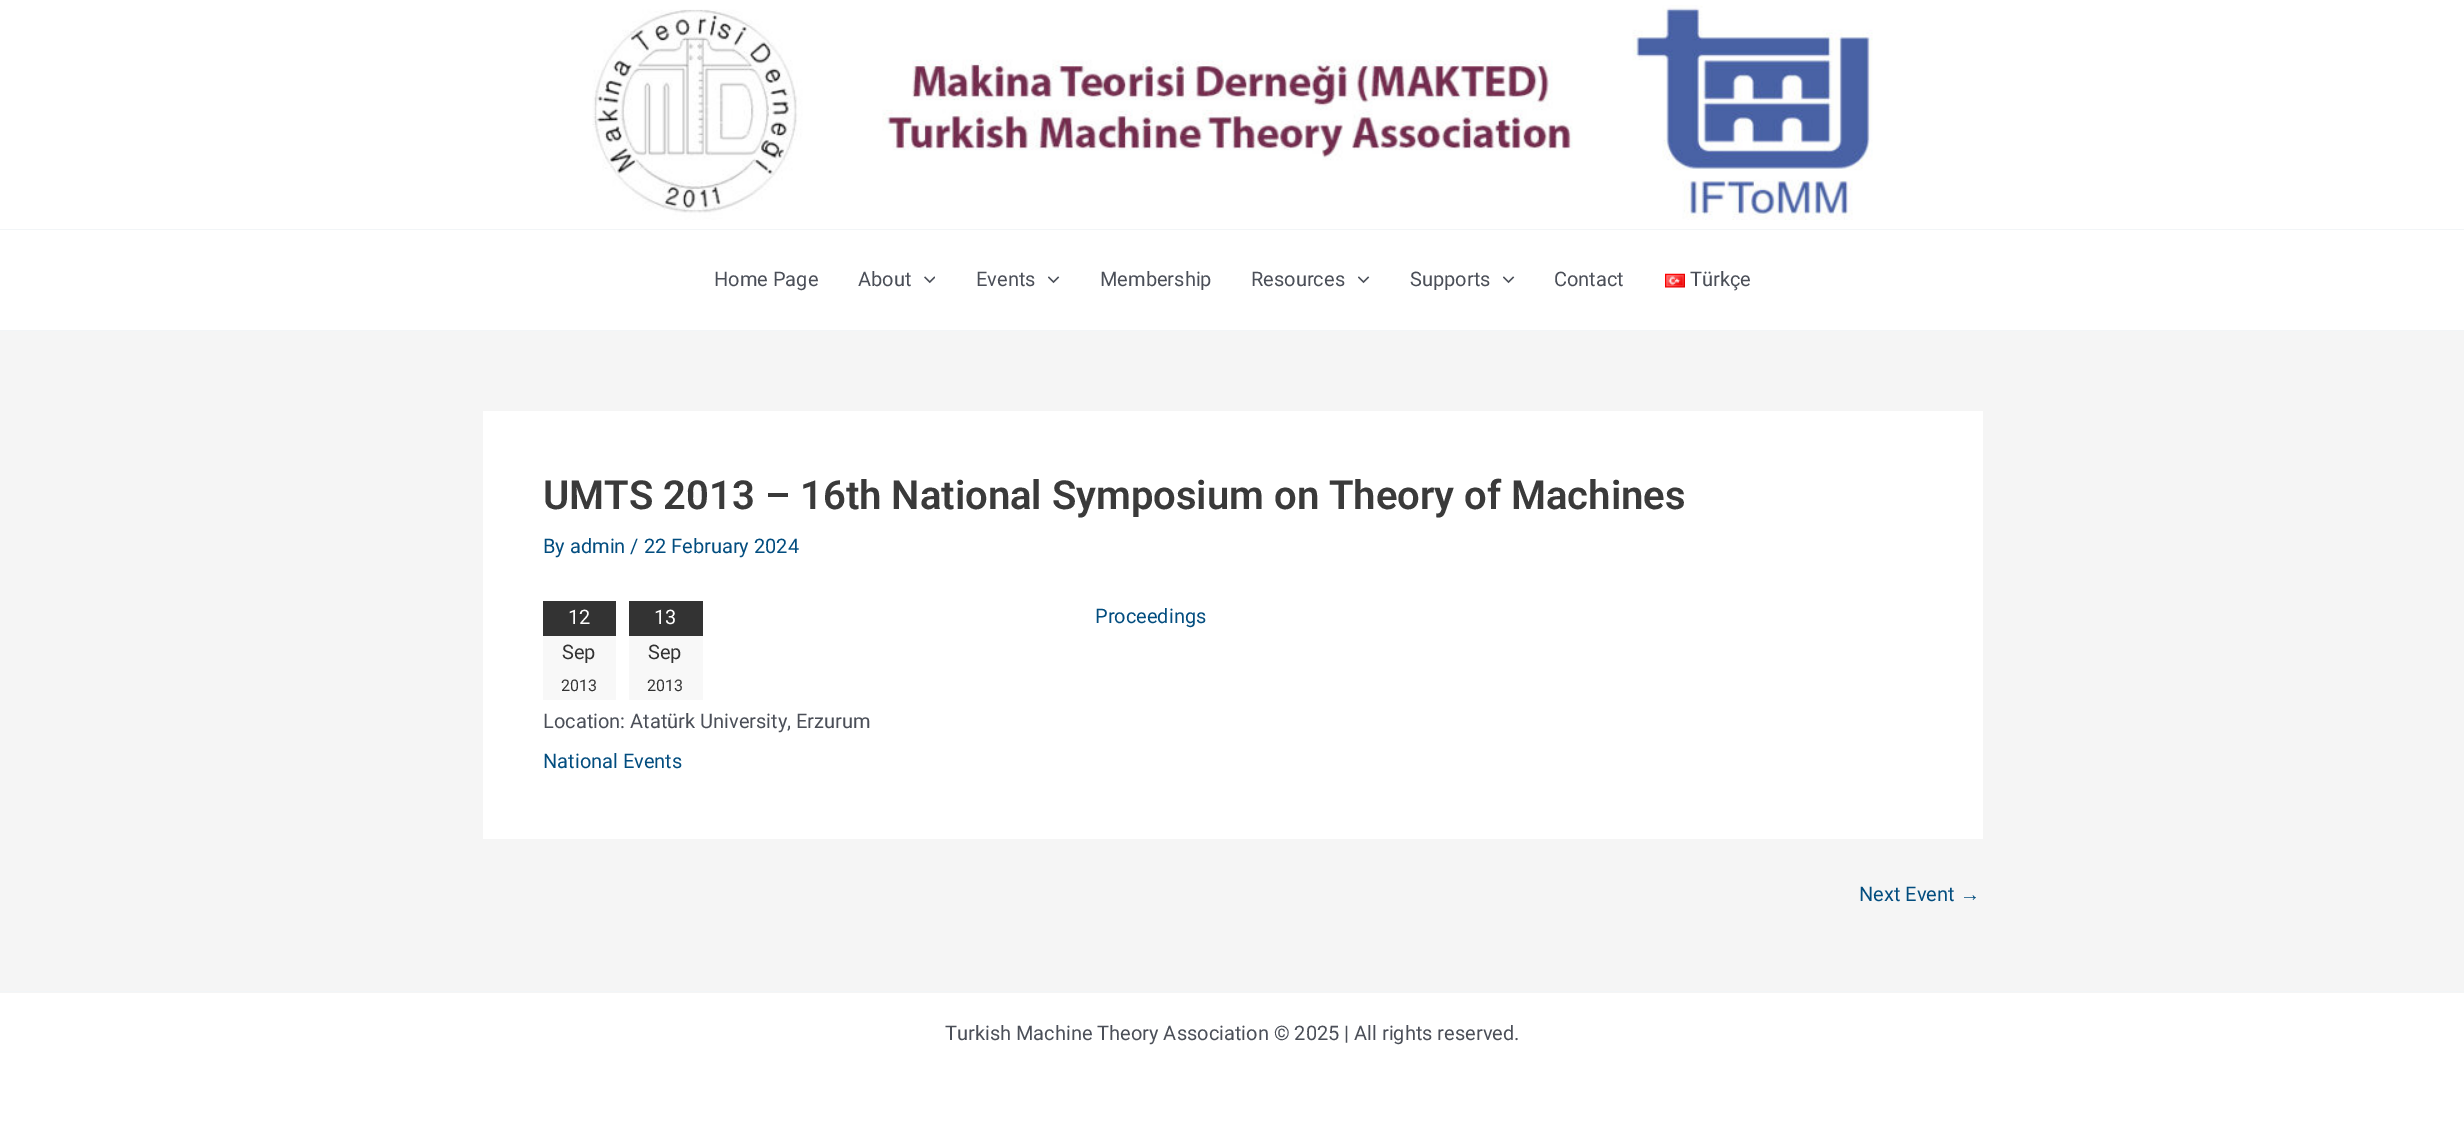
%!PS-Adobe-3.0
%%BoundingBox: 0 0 2464 1121
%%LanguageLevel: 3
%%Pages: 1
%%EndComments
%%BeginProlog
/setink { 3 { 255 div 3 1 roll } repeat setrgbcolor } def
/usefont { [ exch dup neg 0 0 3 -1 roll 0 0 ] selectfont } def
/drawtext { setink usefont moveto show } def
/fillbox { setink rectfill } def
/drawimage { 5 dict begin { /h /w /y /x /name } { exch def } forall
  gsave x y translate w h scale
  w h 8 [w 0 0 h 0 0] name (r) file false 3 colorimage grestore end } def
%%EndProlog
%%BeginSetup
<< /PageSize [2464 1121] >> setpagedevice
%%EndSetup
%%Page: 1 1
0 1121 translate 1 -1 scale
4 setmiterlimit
0 0 2464 1121 245 245 245 fillbox
0 0 2464 229 255 255 255 fillbox
0 229 2464 1 242 245 247 fillbox
(assets/img1.rgb) 592 5 1281 215 drawimage
0 230 2464 100 255 255 255 fillbox
0 330 2464 1 242 245 247 fillbox
(Home Page) 714 286 /Roboto-Regular 20 75 79 88 drawtext
(About) 858 286 /Roboto-Regular 20 75 79 88 drawtext
(assets/img2.rgb) 924 276 11 8 drawimage
(Events) 976 286 /Roboto-Regular 20 75 79 88 drawtext
(assets/img3.rgb) 1048 276 12 8 drawimage
(Membership) 1100 286 /Roboto-Regular 20 75 79 88 drawtext
(Resources) 1251 286 /Roboto-Regular 20 75 79 88 drawtext
(assets/img3.rgb) 1358 276 12 8 drawimage
(Supports) 1410 286 /Roboto-Regular 20 75 79 88 drawtext
(assets/img3.rgb) 1503 276 12 8 drawimage
(Contact) 1554 286 /Roboto-Regular 20 75 79 88 drawtext
(assets/img4.rgb) 1665 273 20 15 drawimage
(Türkçe) 1690 286 /Roboto-Regular 20 75 79 88 drawtext
483 411 1500 428 255 255 255 fillbox
(UMTS 2013 – 16th National Symposium on Theory of Machines) 543 509 /Roboto-SemiBold 40 58 58 58 drawtext
(By admin / 22 February 2024) 543 553 /Roboto-Regular 20 2 77 127 drawtext
543 636 73 64 248 248 248 fillbox
543 601 73 35 51 51 51 fillbox
(12) 568 624 /Roboto-Regular 20 255 255 255 drawtext
(Sep) 562 659 /Roboto-Regular 20 51 51 51 drawtext
(2013) 561 691 /Roboto-Regular 16 51 51 51 drawtext
629 636 74 64 248 248 248 fillbox
629 601 74 35 51 51 51 fillbox
(13) 654 624 /Roboto-Regular 20 255 255 255 drawtext
(Sep) 648 659 /Roboto-Regular 20 51 51 51 drawtext
(2013) 647 691 /Roboto-Regular 16 51 51 51 drawtext
(Location: Atatürk University, Erzurum) 543 728 /Roboto-Regular 20 75 79 88 drawtext
(National Events) 543 768 /Roboto-Regular 20 2 77 127 drawtext
(Proceedings) 1095 623 /Roboto-Regular 20 2 77 127 drawtext
(Next Event) 1859 901 /Roboto-Regular 20 2 77 127 drawtext
(→) 1960 901 /LiberationSans-Regular 20 2 77 127 drawtext
0 993 2464 128 255 255 255 fillbox
0 991 2464 1 242 245 247 fillbox
(Turkish Machine Theory Association © 2025 | All rights reserved.) 945 1040 /Roboto-Regular 20 75 79 88 drawtext
showpage
%%EOF
